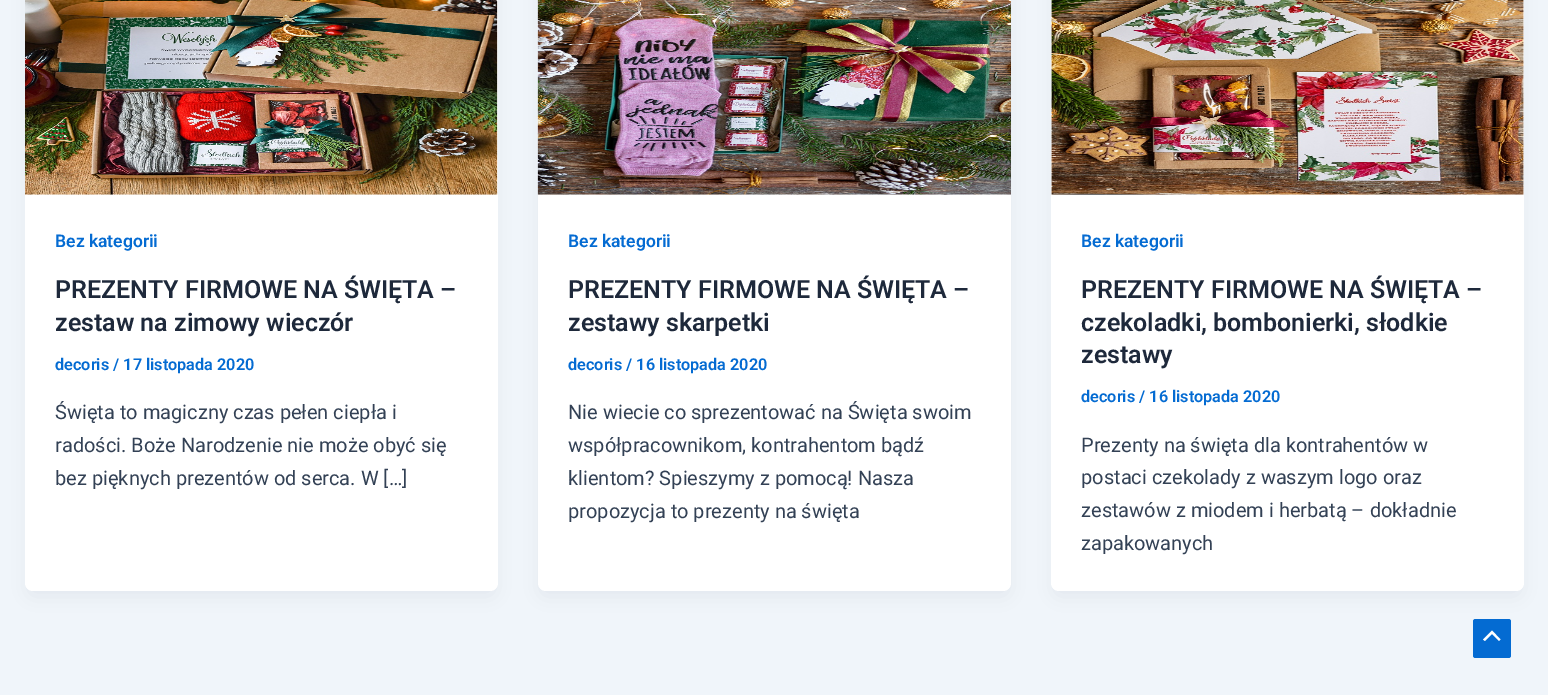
%!PS-Adobe-3.0
%%BoundingBox: 0 0 1548 695
%%LanguageLevel: 3
%%Pages: 1
%%EndComments
%%BeginProlog
/setink { 3 { 255 div 3 1 roll } repeat setrgbcolor } def
/usefont { [ exch dup neg 0 0 3 -1 roll 0 0 ] selectfont } def
/drawtext { setink usefont moveto show } def
/fillbox { setink rectfill } def
/setalpha { dup .setfillconstantalpha .setstrokeconstantalpha } def
/rrect { 5 dict begin { /r /h /w /y /x } { exch def } forall
  x r add y moveto x w add y 2 copy h add r arct x w add y h add x 1 index r arct
  x y h add x y r arct x y 2 copy exch w add exch r arct closepath end } def
/softshadow { 12 dict begin { /a /b /q /h /w /y /x } { exch def } forall gsave /was 0 def
  9 -2 -9 { dup b mul 4 div /e exch def 1 sub .425 mul 2.718 exch exp 1 add a .99 .min exch div /now exch def
    1 1 now sub 1 was sub div sub setalpha /was now def
    w h .min e 2 mul add 0 gt { x e sub y e sub w e 2 mul add h e 2 mul add
      q e add b .6 mul add w h .min 2 div e add .min 0 .max rrect fill } if } for grestore end } def
/drawimage { 5 dict begin { /h /w /y /x /name } { exch def } forall
  gsave x y translate w h scale
  w h 8 [w 0 0 h 0 0] name (r) file false 3 colorimage grestore end } def
%%EndProlog
%%BeginSetup
<< /PageSize [1548 695] /PageUsesTransparency true >> setpagedevice
%%EndSetup
%%Page: 1 1
0 .pushpdf14devicefilter
0 695 translate 1 -1 scale
4 setmiterlimit
0 0 1548 695 240 245 250 fillbox
16 24 40 setink
28 -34 467 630 5 9.5 0.05 softshadow
255 255 255 setink
25 -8 473 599 8 rrect fill
(assets/img1.rgb) 25 0 473 195 drawimage
(Bez kategorii) 55 247 /Roboto-SemiBold 17.5 4 107 210 drawtext
(PREZENTY FIRMOWE NA ŚWIĘTA –) 55 298 /Roboto-SemiBold 25 30 41 59 drawtext
(zestaw na zimowy wieczór) 55 331 /Roboto-SemiBold 25 30 41 59 drawtext
(decoris / 17 listopada 2020) 55 370 /Roboto-SemiBold 16.25 4 107 210 drawtext
(Święta to magiczny czas pełen ciepła i) 55 419 /Roboto-Regular 20 51 65 85 drawtext
(radości. Boże Narodzenie nie może obyć się) 55 452 /Roboto-Regular 20 51 65 85 drawtext
(bez pięknych prezentów od serca. W […]) 55 485 /Roboto-Regular 20 51 65 85 drawtext
16 24 40 setink
540 -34 469 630 5 9.5 0.05 softshadow
255 255 255 setink
538 -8 473 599 8 rrect fill
(assets/img2.rgb) 537 0 474 195 drawimage
(Bez kategorii) 568 247 /Roboto-SemiBold 17.5 4 107 210 drawtext
(PREZENTY FIRMOWE NA ŚWIĘTA –) 568 298 /Roboto-SemiBold 25 30 41 59 drawtext
(zestawy skarpetki) 568 331 /Roboto-SemiBold 25 30 41 59 drawtext
(decoris / 16 listopada 2020) 568 370 /Roboto-SemiBold 16.25 4 107 210 drawtext
(Nie wiecie co sprezentować na Święta swoim) 568 419 /Roboto-Regular 20 51 65 85 drawtext
(współpracownikom, kontrahentom bądź) 568 452 /Roboto-Regular 20 51 65 85 drawtext
(klientom? Spieszymy z pomocą! Nasza) 568 485 /Roboto-Regular 20 51 65 85 drawtext
(propozycja to prezenty na święta) 568 518 /Roboto-Regular 20 51 65 85 drawtext
16 24 40 setink
1054 -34 467 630 5 9.5 0.05 softshadow
255 255 255 setink
1051 -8 473 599 8 rrect fill
(assets/img3.rgb) 1051 0 473 195 drawimage
(Bez kategorii) 1081 247 /Roboto-SemiBold 17.5 4 107 210 drawtext
(PREZENTY FIRMOWE NA ŚWIĘTA –) 1081 298 /Roboto-SemiBold 25 30 41 59 drawtext
(czekoladki, bombonierki, słodkie) 1081 331 /Roboto-SemiBold 25 30 41 59 drawtext
(zestawy) 1081 363 /Roboto-SemiBold 25 30 41 59 drawtext
(decoris / 16 listopada 2020) 1081 402 /Roboto-SemiBold 16.25 4 107 210 drawtext
(Prezenty na święta dla kontrahentów w) 1081 452 /Roboto-Regular 20 51 65 85 drawtext
(postaci czekolady z waszym logo oraz) 1081 484 /Roboto-Regular 20 51 65 85 drawtext
(zestawów z miodem i herbatą – dokładnie) 1081 517 /Roboto-Regular 20 51 65 85 drawtext
(zapakowanych) 1081 550 /Roboto-Regular 20 51 65 85 drawtext
4 107 210 setink
1473 619 38 39 2.5 rrect fill
255 255 255 setink
1500.5 639.5 moveto 1492 630.5 lineto 1483 639.5 lineto 1485 641 lineto 1492 634 lineto 1499 641 lineto closepath fill
.poppdf14devicefilter showpage
%%EOF
